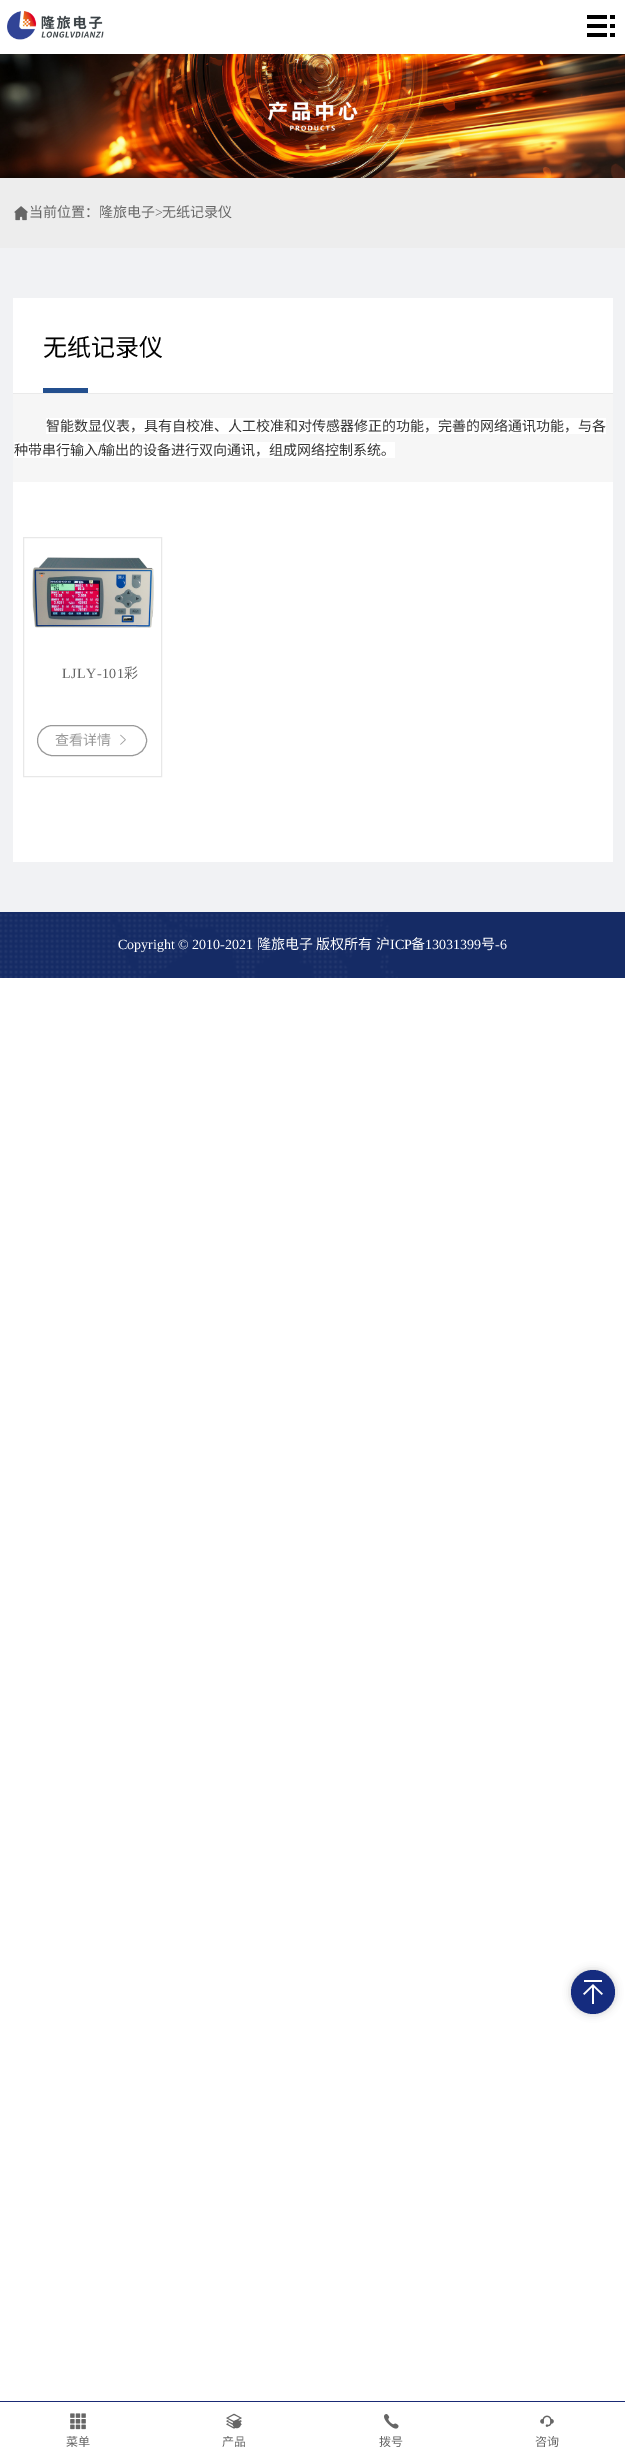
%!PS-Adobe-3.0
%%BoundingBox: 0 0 625 2462
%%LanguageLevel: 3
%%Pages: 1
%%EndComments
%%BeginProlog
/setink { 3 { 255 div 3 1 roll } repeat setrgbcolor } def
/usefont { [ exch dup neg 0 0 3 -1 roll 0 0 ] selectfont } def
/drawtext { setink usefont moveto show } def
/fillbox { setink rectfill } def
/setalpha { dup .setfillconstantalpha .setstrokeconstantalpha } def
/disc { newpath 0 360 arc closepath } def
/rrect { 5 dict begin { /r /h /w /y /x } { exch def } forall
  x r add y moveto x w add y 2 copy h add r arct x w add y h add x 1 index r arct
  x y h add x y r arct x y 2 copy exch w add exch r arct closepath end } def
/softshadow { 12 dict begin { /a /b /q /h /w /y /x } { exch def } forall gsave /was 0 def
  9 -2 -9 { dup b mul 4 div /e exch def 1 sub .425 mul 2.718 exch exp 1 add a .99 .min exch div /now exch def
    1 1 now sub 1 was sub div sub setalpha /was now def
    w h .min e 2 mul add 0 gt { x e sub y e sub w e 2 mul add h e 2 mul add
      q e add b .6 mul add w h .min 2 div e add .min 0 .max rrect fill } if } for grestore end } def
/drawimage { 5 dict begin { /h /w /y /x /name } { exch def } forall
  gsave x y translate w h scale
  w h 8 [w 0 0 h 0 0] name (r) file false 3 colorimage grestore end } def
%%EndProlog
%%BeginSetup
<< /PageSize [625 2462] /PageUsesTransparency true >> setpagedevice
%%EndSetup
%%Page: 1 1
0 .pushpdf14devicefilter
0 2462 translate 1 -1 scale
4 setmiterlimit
0 0 625 2462 255 255 255 fillbox
(assets/img1.rgb) 7 11 97 29 drawimage
(assets/img2.rgb) 587 15 28 22 drawimage
(assets/img3.rgb) 0 54 625 124 drawimage
0 178 625 70 237 237 237 fillbox
(assets/img4.rgb) 14 206 14 15 drawimage
(当前位置：隆旅电子) 29 217 /NotoSansCJKSC-Regular 14 102 102 102 drawtext
(>) 155 217 /LiberationSerif-Regular 14 102 102 102 drawtext
(无纸记录仪) 162 217 /NotoSansCJKSC-Regular 14 102 102 102 drawtext
0 248 625 664 241 242 244 fillbox
13 298 600 564 255 255 255 fillbox
13 393 600 1 234 234 234 fillbox
(无纸记录仪) 43 356 /NotoSansCJKSC-Regular 24 0 0 0 drawtext
43 388 45 5 35 79 142 fillbox
13 394 600 88 246 246 246 fillbox
46 418 560 16 255 255 255 fillbox
(智能数显仪表，具有自校准、人工校准和对传感器修正的功能，完善的网络通讯功能，与各) 46 431 /NotoSansCJKSC-Regular 14 51 51 51 drawtext
14 442 381 16 255 255 255 fillbox
(种带串行输入) 14 455 /NotoSansCJKSC-Regular 14 51 51 51 drawtext
(/) 98 455 /LiberationSans-Regular 14 51 51 51 drawtext
(输出的设备进行双向通讯，组成网络控制系统。) 101 455 /NotoSansCJKSC-Regular 14 51 51 51 drawtext
232 232 232 setink
23.5 537.5 138 239 rectstroke
(assets/img5.rgb) 32 557 122 71 drawimage
/LiberationSerif-Regular 14 usefont
102 102 102 setink
62 678 moveto 0.5 0 (LJLY-101) ashow
/NotoSansCJKSC-Regular 14 usefont
124 678 moveto 0.5 0 (彩) ashow
153 153 153 setink
37.5 725.5 109 30 15 rrect stroke
(查看详情) 55 745 /NotoSansCJKSC-Regular 14 153 153 153 drawtext
(assets/img6.rgb) 120 734 6 11 drawimage
0 912 625 66 21 43 101 fillbox
(assets/img7.rgb) 0 914 398 64 drawimage
(Copyright © 2010-2021) 118 949 /LiberationSerif-Regular 14 255 255 255 drawtext
(隆旅电子) 257 949 /NotoSansCJKSC-Regular 14 255 255 255 drawtext
(版权所有) 316 949 /NotoSansCJKSC-Regular 14 255 255 255 drawtext
(沪) 376 949 /NotoSansCJKSC-Regular 14 255 255 255 drawtext
(ICP) 390 949 /LiberationSerif-Regular 14 255 255 255 drawtext
(备) 411 949 /NotoSansCJKSC-Regular 14 255 255 255 drawtext
(13031399) 425 949 /LiberationSerif-Regular 14 255 255 255 drawtext
(号) 481 949 /NotoSansCJKSC-Regular 14 255 255 255 drawtext
(-6) 495 949 /LiberationSerif-Regular 14 255 255 255 drawtext
0 0 0 setink
571 1970 44 44 22 4 0.2 softshadow
21 44 127 setink
593 1992 22 disc fill
(assets/img8.rgb) 583 1980 20 24 drawimage
0 2401 625 1 25 42 117 fillbox
(assets/img9.rgb) 70 2413 16 17 drawimage
(菜单) 66 2446 /NotoSansCJKSC-Regular 12 102 102 102 drawtext
(assets/img10.rgb) 226 2413 16 16 drawimage
(产品) 222 2446 /NotoSansCJKSC-Regular 12 102 102 102 drawtext
(assets/img11.rgb) 384 2414 15 15 drawimage
(拨号) 379 2446 /NotoSansCJKSC-Regular 12 102 102 102 drawtext
(assets/img12.rgb) 540 2415 14 12 drawimage
(咨询) 535 2446 /NotoSansCJKSC-Regular 12 102 102 102 drawtext
.poppdf14devicefilter showpage
%%EOF
